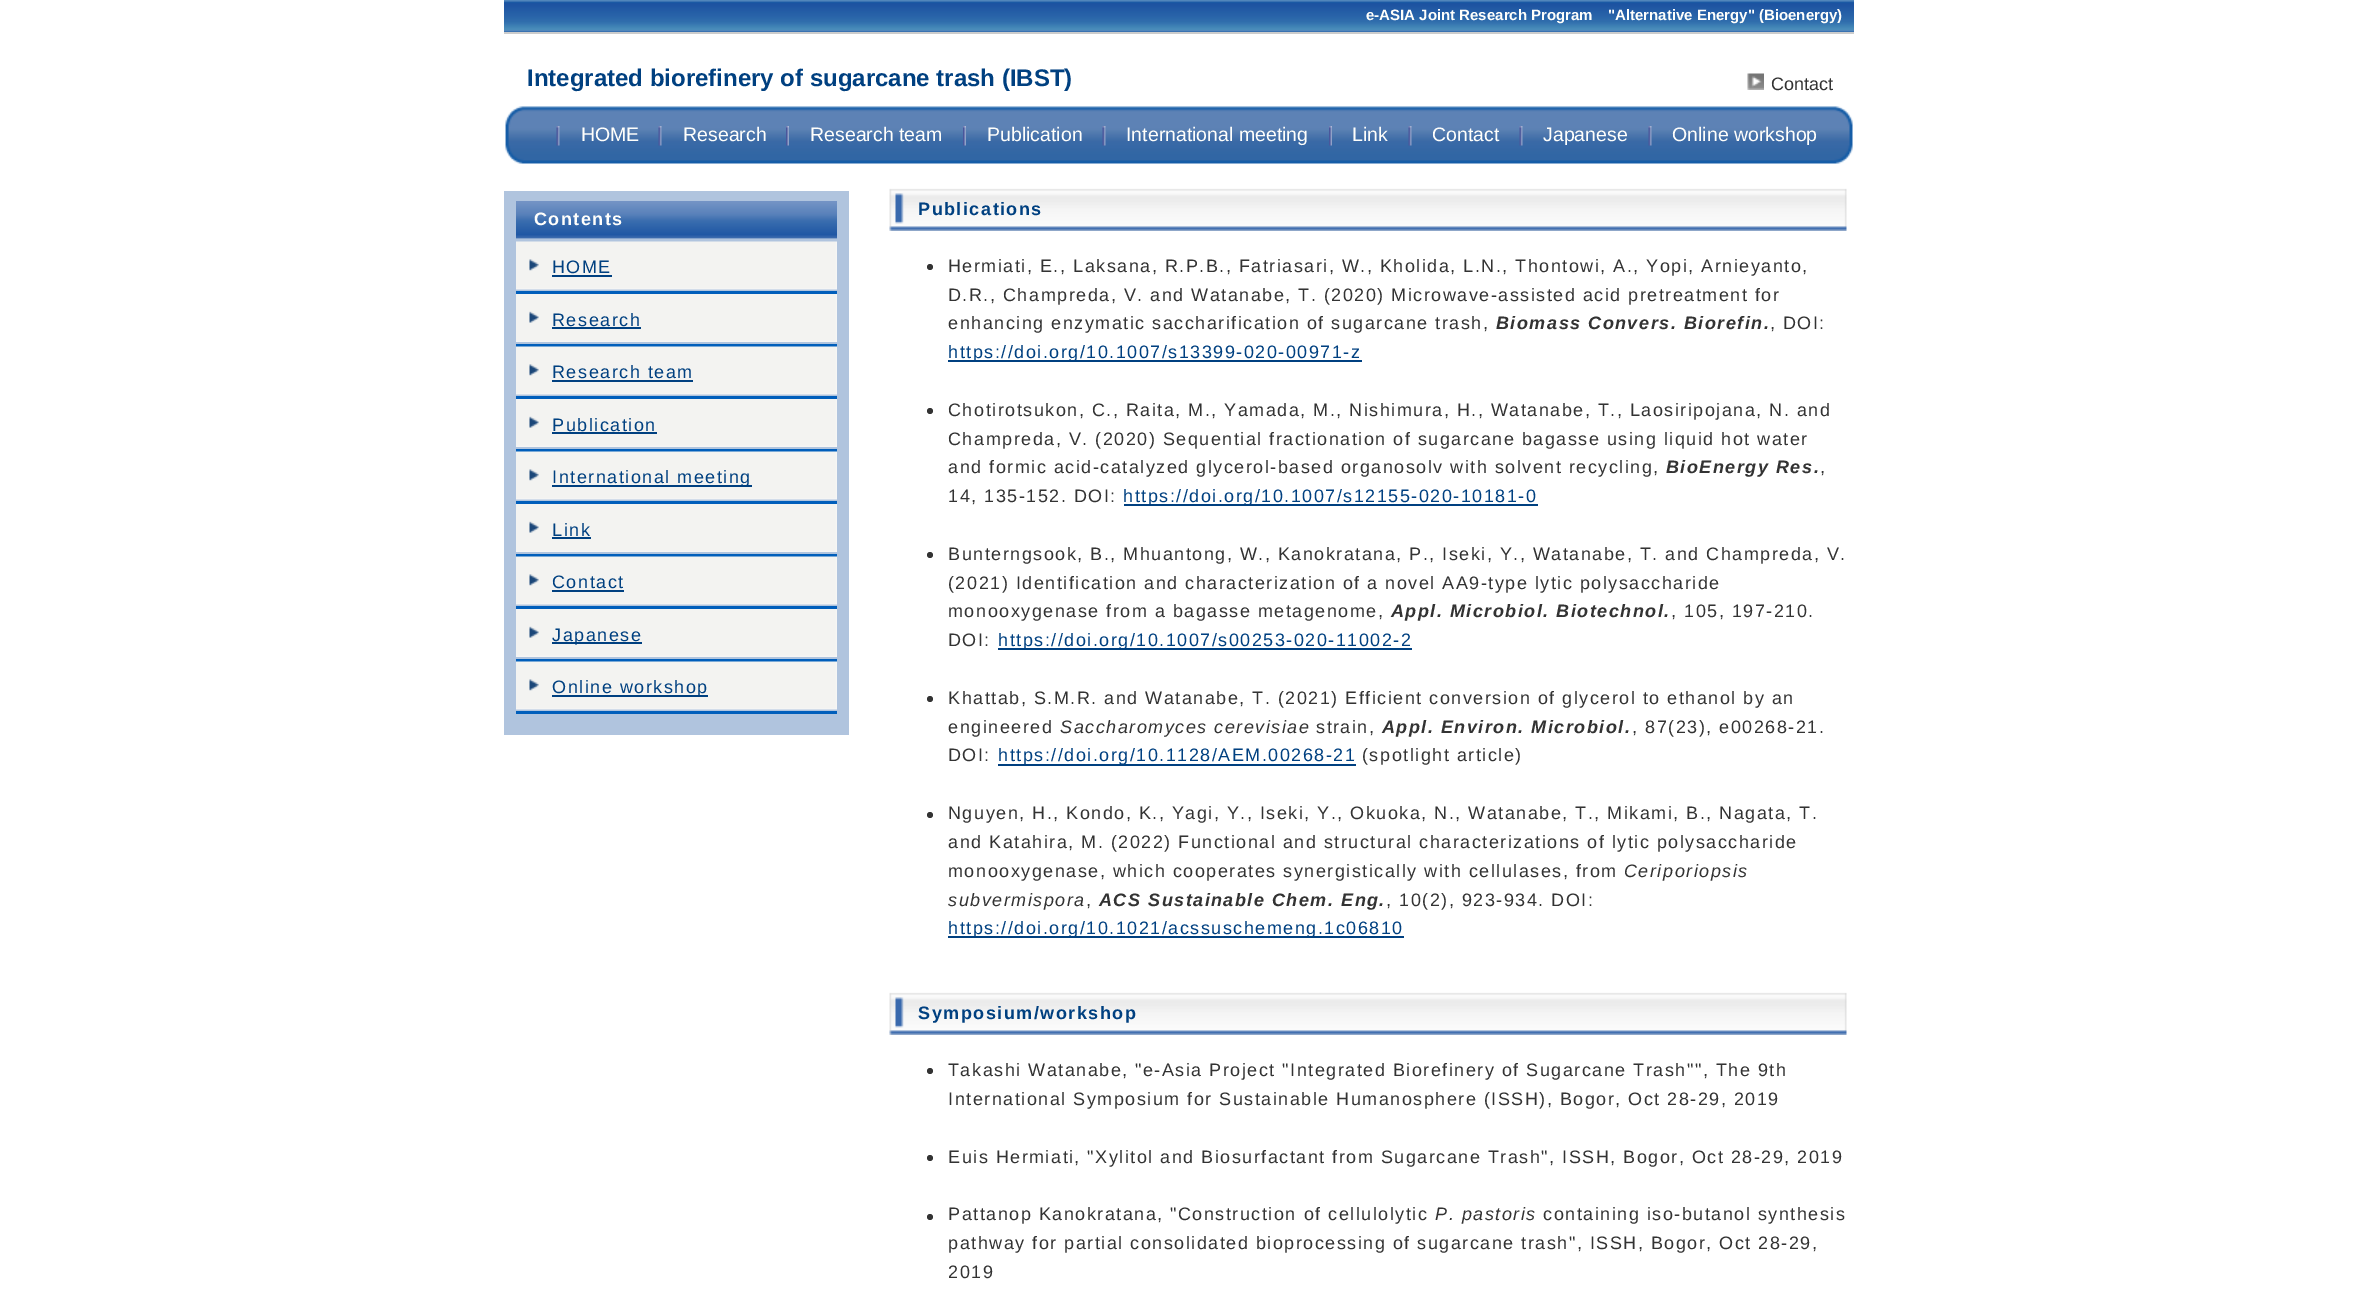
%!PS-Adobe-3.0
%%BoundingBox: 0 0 2358 1306
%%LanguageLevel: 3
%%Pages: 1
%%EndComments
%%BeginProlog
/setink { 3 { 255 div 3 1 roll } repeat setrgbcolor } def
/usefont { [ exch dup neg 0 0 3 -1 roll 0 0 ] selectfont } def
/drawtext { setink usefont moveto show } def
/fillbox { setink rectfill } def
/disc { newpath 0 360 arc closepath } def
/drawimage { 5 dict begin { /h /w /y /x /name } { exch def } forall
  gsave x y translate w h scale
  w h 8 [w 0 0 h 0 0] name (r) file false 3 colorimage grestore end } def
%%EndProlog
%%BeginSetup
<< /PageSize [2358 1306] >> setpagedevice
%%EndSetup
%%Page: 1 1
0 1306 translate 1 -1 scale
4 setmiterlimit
0 0 2358 1306 255 255 255 fillbox
(assets/img1.rgb) 504 0 1350 32 drawimage
504 32 1350 2 204 204 204 fillbox
(e-ASIA Joint Research Program) 1366 20 /LiberationSans-Bold 15 255 255 252 drawtext
("Alternative Energy" \(Bioenergy\)) 1608 20 /LiberationSans-Bold 15 255 255 252 drawtext
(Integrated biorefinery of sugarcane trash \(IBST\)) 527 86 /LiberationSans-Bold 24 0 64 128 drawtext
(assets/img2.rgb) 1747 73 17 17 drawimage
(Contact) 1771 90 /LiberationSans-Regular 18 51 51 51 drawtext
(assets/img3.rgb) 505 106 1348 58 drawimage
(assets/img4.rgb) 556 126 4 20 drawimage
(HOME) 581 141 /LiberationSans-Regular 19.5 255 255 252 drawtext
(assets/img4.rgb) 658 126 4 20 drawimage
(Research) 683 141 /LiberationSans-Regular 19.5 255 255 252 drawtext
(assets/img5.rgb) 786 126 3 20 drawimage
(Research team) 810 141 /LiberationSans-Regular 19.5 255 255 252 drawtext
(assets/img5.rgb) 963 126 3 20 drawimage
(Publication) 987 141 /LiberationSans-Regular 19.5 255 255 252 drawtext
(assets/img4.rgb) 1102 126 4 20 drawimage
(International meeting) 1126 141 /LiberationSans-Regular 19.5 255 255 252 drawtext
(assets/img6.rgb) 1329 126 3 20 drawimage
(Link) 1352 141 /LiberationSans-Regular 19.5 255 255 252 drawtext
(assets/img4.rgb) 1408 126 4 20 drawimage
(Contact) 1432 141 /LiberationSans-Regular 19.5 255 255 252 drawtext
(assets/img4.rgb) 1519 126 4 20 drawimage
(Japanese) 1543 141 /LiberationSans-Regular 19.5 255 255 252 drawtext
(assets/img4.rgb) 1648 126 4 20 drawimage
(Online workshop) 1672 141 /LiberationSans-Regular 19.5 255 255 252 drawtext
504 191 345 544 176 196 222 fillbox
(assets/img7.rgb) 516 201 321 38 drawimage
/LiberationSans-Bold 18 usefont
255 255 252 setink
534 225 moveto 1.5 0 (Contents) ashow
(assets/img8.rgb) 516 241 321 49 drawimage
516 291 321 3 0 94 187 fillbox
/LiberationSans-Regular 18 usefont
0 64 128 setink
552 273 moveto 1.5 0 (HOME) ashow
552 275 60 2 0 64 128 fillbox
(assets/img9.rgb) 516 294 321 48 drawimage
516 344 321 3 0 94 187 fillbox
0 64 128 setink
552 326 moveto 1.5 0 (Research) ashow
552 327 89 2 0 64 128 fillbox
(assets/img10.rgb) 516 346 321 49 drawimage
516 396 321 3 0 94 187 fillbox
0 64 128 setink
552 378 moveto 1.5 0 (Research team) ashow
552 380 141 2 0 64 128 fillbox
(assets/img9.rgb) 516 399 321 48 drawimage
516 449 321 3 0 94 187 fillbox
0 64 128 setink
552 431 moveto 1.5 0 (Publication) ashow
552 432 105 2 0 64 128 fillbox
(assets/img10.rgb) 516 451 321 49 drawimage
516 501 321 3 0 94 187 fillbox
552 485 200 2 0 64 128 fillbox
552 483 moveto 1.5 0 (International meeting) ashow
(assets/img9.rgb) 516 504 321 48 drawimage
516 554 321 3 0 94 187 fillbox
0 64 128 setink
552 536 moveto 1.5 0 (Link) ashow
552 537 39 2 0 64 128 fillbox
(assets/img10.rgb) 516 556 321 49 drawimage
516 606 321 3 0 94 187 fillbox
0 64 128 setink
552 588 moveto 1.5 0 (Contact) ashow
552 590 72 2 0 64 128 fillbox
(assets/img9.rgb) 516 609 321 48 drawimage
516 659 321 3 0 94 187 fillbox
552 642 90 2 0 64 128 fillbox
552 641 moveto 1.5 0 (Japanese) ashow
(assets/img10.rgb) 516 661 321 49 drawimage
516 711 321 3 0 94 187 fillbox
552 695 156 2 0 64 128 fillbox
552 693 moveto 1.5 0 (Online workshop) ashow
(assets/img11.rgb) 889 188 958 43 drawimage
/LiberationSans-Bold 18 usefont
918 215 moveto 1.5 0 (Publications) ashow
51 51 51 setink
930 267 3 disc fill
/LiberationSans-Regular 18 usefont
948 272 moveto 1.5 0 (Hermiati, E., Laksana, R.P.B., Fatriasari, W., Kholida, L.N., Thontowi, A., Yopi, Arnieyanto,) ashow
948 301 moveto 1.5 0 (D.R., Champreda, V. and Watanabe, T. \(2020\) Microwave-assisted acid pretreatment for) ashow
948 329 moveto 1.5 0 (enhancing enzymatic saccharification of sugarcane trash,) ashow
/LiberationSans-BoldItalic 18 usefont
1496 329 moveto 1.5 0 (Biomass Convers. Biorefin.) ashow
/LiberationSans-Regular 18 usefont
1770 329 moveto 1.5 0 (, DOI:) ashow
948 360 414 2 0 64 128 fillbox
948 358 moveto 1.5 0 (https://doi.org/10.1007/s13399-020-00971-z) ashow
51 51 51 setink
930 411 3 disc fill
948 416 moveto 1.5 0 (Chotirotsukon, C., Raita, M., Yamada, M., Nishimura, H., Watanabe, T., Laosiripojana, N. and) ashow
948 445 moveto 1.5 0 (Champreda, V. \(2020\) Sequential fractionation of sugarcane bagasse using liquid hot water) ashow
948 473 moveto 1.5 0 (and formic acid-catalyzed glycerol-based organosolv with solvent recycling,) ashow
/LiberationSans-BoldItalic 18 usefont
1666 473 moveto 1.5 0 (BioEnergy Res.) ashow
/LiberationSans-Regular 18 usefont
1820 473 moveto 1.5 0 (,) ashow
948 502 moveto 1.5 0 (14, 135-152. DOI:) ashow
1124 504 414 2 0 64 128 fillbox
1123 502 moveto 1.5 0 (https://doi.org/10.1007/s12155-020-10181-0) ashow
51 51 51 setink
930 555 3 disc fill
948 560 moveto 1.5 0 (Bunterngsook, B., Mhuantong, W., Kanokratana, P., Iseki, Y., Watanabe, T. and Champreda, V.) ashow
948 589 moveto 1.5 0 (\(2021\) Identification and characterization of a novel AA9-type lytic polysaccharide) ashow
948 617 moveto 1.5 0 (monooxygenase from a bagasse metagenome,) ashow
/LiberationSans-BoldItalic 18 usefont
1391 617 moveto 1.5 0 (Appl. Microbiol. Biotechnol.) ashow
/LiberationSans-Regular 18 usefont
1671 617 moveto 1.5 0 (, 105, 197-210.) ashow
948 646 moveto 1.5 0 (DOI:) ashow
998 648 414 2 0 64 128 fillbox
998 646 moveto 1.5 0 (https://doi.org/10.1007/s00253-020-11002-2) ashow
51 51 51 setink
930 699 3 disc fill
948 704 moveto 1.5 0 (Khattab, S.M.R. and Watanabe, T. \(2021\) Efficient conversion of glycerol to ethanol by an) ashow
948 733 moveto 1.5 0 (engineered) ashow
/LiberationSans-Italic 18 usefont
1060 733 moveto 1.5 0 (Saccharomyces cerevisiae) ashow
/LiberationSans-Regular 18 usefont
1316 733 moveto 1.5 0 (strain,) ashow
/LiberationSans-BoldItalic 18 usefont
1382 733 moveto 1.5 0 (Appl. Environ. Microbiol.) ashow
/LiberationSans-Regular 18 usefont
1632 733 moveto 1.5 0 (, 87\(23\), e00268-21.) ashow
948 761 moveto 1.5 0 (DOI:) ashow
998 764 358 2 0 64 128 fillbox
998 761 moveto 1.5 0 (https://doi.org/10.1128/AEM.00268-21) ashow
51 51 51 setink
1362 761 moveto 1.5 0 (\(spotlight article\)) ashow
930 815 3 disc fill
948 819 moveto 1.5 0 (Nguyen, H., Kondo, K., Yagi, Y., Iseki, Y., Okuoka, N., Watanabe, T., Mikami, B., Nagata, T.) ashow
948 848 moveto 1.5 0 (and Katahira, M. \(2022\) Functional and structural characterizations of lytic polysaccharide) ashow
948 877 moveto 1.5 0 (monooxygenase, which cooperates synergistically with cellulases, from) ashow
/LiberationSans-Italic 18 usefont
1624 877 moveto 1.5 0 (Ceriporiopsis) ashow
948 906 moveto 1.5 0 (subvermispora) ashow
/LiberationSans-Regular 18 usefont
1086 906 moveto 1.5 0 (,) ashow
/LiberationSans-BoldItalic 18 usefont
1099 906 moveto 1.5 0 (ACS Sustainable Chem. Eng.) ashow
/LiberationSans-Regular 18 usefont
1386 906 moveto 1.5 0 (, 10\(2\), 923-934. DOI:) ashow
948 936 456 2 0 64 128 fillbox
948 934 moveto 1.5 0 (https://doi.org/10.1021/acssuschemeng.1c06810) ashow
(assets/img11.rgb) 889 992 958 43 drawimage
/LiberationSans-Bold 18 usefont
918 1019 moveto 1.5 0 (Symposium/workshop) ashow
51 51 51 setink
930 1071 3 disc fill
/LiberationSans-Regular 18 usefont
948 1076 moveto 1.5 0 (Takashi Watanabe, "e-Asia Project "Integrated Biorefinery of Sugarcane Trash"", The 9th) ashow
948 1105 moveto 1.5 0 (International Symposium for Sustainable Humanosphere \(ISSH\), Bogor, Oct 28-29, 2019) ashow
930 1158 3 disc fill
948 1163 moveto 1.5 0 (Euis Hermiati, "Xylitol and Biosurfactant from Sugarcane Trash", ISSH, Bogor, Oct 28-29, 2019) ashow
930 1217 3 disc fill
948 1220 moveto 1.5 0 (Pattanop Kanokratana, "Construction of cellulolytic) ashow
/LiberationSans-Italic 18 usefont
1435 1220 moveto 1.5 0 (P. pastoris) ashow
/LiberationSans-Regular 18 usefont
1543 1220 moveto 1.5 0 (containing iso-butanol synthesis) ashow
948 1249 moveto 1.5 0 (pathway for partial consolidated bioprocessing of sugarcane trash", ISSH, Bogor, Oct 28-29,) ashow
948 1278 moveto 1.5 0 (2019) ashow
showpage
%%EOF
